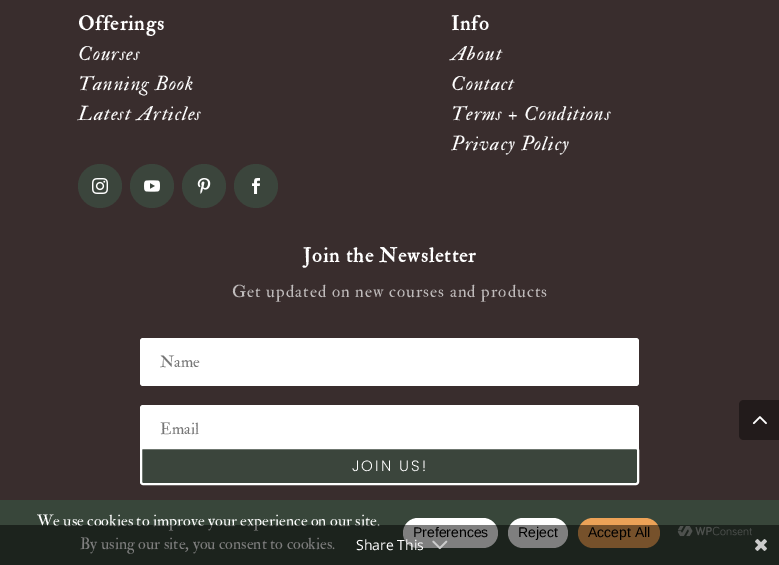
%!PS-Adobe-3.0
%%BoundingBox: 0 0 779 565
%%LanguageLevel: 3
%%Pages: 1
%%EndComments
%%BeginProlog
/setink { 3 { 255 div 3 1 roll } repeat setrgbcolor } def
/usefont { [ exch dup neg 0 0 3 -1 roll 0 0 ] selectfont } def
/drawtext { setink usefont moveto show } def
/fillbox { setink rectfill } def
/setalpha { dup .setfillconstantalpha .setstrokeconstantalpha } def
/disc { newpath 0 360 arc closepath } def
/rrect { 5 dict begin { /r /h /w /y /x } { exch def } forall
  x r add y moveto x w add y 2 copy h add r arct x w add y h add x 1 index r arct
  x y h add x y r arct x y 2 copy exch w add exch r arct closepath end } def
/drawimage { 5 dict begin { /h /w /y /x /name } { exch def } forall
  gsave x y translate w h scale
  w h 8 [w 0 0 h 0 0] name (r) file false 3 colorimage grestore end } def
%%EndProlog
%%BeginSetup
<< /PageSize [779 565] /PageUsesTransparency true >> setpagedevice
%%EndSetup
%%Page: 1 1
0 .pushpdf14devicefilter
0 565 translate 1 -1 scale
4 setmiterlimit
0 0 779 565 57 45 45 fillbox
/IMFELLDoublePica-Bold 20 usefont
255 255 255 setink
78 30 moveto 1 0 (Offerings) ashow
/IMFELLDoublePica-Italic 20 usefont
78 60 moveto 1 0 (Courses) ashow
78 90 moveto 1 0 (Tanning Book) ashow
78 120 moveto 1 0 (Latest Articles) ashow
59 69 60 setink
100 186 22 disc fill
(assets/img1.rgb) 92 178 16 16 drawimage
152 186 22 disc fill
(assets/img2.rgb) 144 180 16 12 drawimage
204 186 22 disc fill
(assets/img3.rgb) 197 178 14 16 drawimage
256 186 22 disc fill
(assets/img4.rgb) 252 178 8 16 drawimage
/IMFELLDoublePica-Bold 20 usefont
255 255 255 setink
451 30 moveto 1 0 (Info) ashow
/IMFELLDoublePica-Italic 20 usefont
451 60 moveto 1 0 (About) ashow
451 90 moveto 1 0 (Contact) ashow
451 120 moveto 1 0 (Terms + Conditions) ashow
451 150 moveto 1 0 (Privacy Policy) ashow
/IMFELLDoublePica-Bold 20 usefont
303 262 moveto 1 0 (Join the Newsletter) ashow
/IMFELLDoublePica-Regular 17 usefont
192 188 188 setink
232 297 moveto 1 0 (Get updated on new courses and products) ashow
255 255 255 setink
140 338 499 48 3 rrect fill
(Name) 160 367 /IMFELLDoublePica-Regular 16 117 117 117 drawtext
255 255 255 setink
140 405 499 48 3 rrect fill
(Email) 160 434 /IMFELLDoublePica-Regular 16 117 117 117 drawtext
59 69 60 setink
141 448 497 36 2 rrect gsave fill grestore
255 255 255 setink
2 setlinewidth
stroke
/Poppins-Light 15 usefont
352 471 moveto 2 0 (JOIN US!) ashow
34 27 27 setink
744 400 moveto 779 400 lineto 779 440 lineto 744 440 lineto 741 440 739 438 739 435 curveto 739 405 lineto 739 402 741 400 744 400 curveto closepath fill
(assets/img5.rgb) 752 416 15 9 drawimage
0 500 779 65 56 70 58 fillbox
(We use cookies to improve your experience on our site.) 37 526 /IMFELLDoublePica-Regular 16 255 255 255 drawtext
(By using our site, you consent to cookies.) 80 549 /IMFELLDoublePica-Regular 16 255 255 255 drawtext
403 518 95 30 15 rrect fill
(Preferences) 413 537 /LiberationSans-Regular 14 0 0 0 drawtext
255 255 255 setink
508 518 60 30 15 rrect fill
(Reject) 518 537 /LiberationSans-Regular 14 0 0 0 drawtext
236 162 87 setink
578 518 82 30 15 rrect fill
(Accept All) 588 537 /LiberationSans-Regular 14 0 0 0 drawtext
(assets/img6.rgb) 677 526 75 11 drawimage
0.5 setalpha
0 525 779 40 0 0 0 fillbox
1 setalpha
(Share This) 356 550 /OpenSans-Regular 14 255 255 255 drawtext
(assets/img7.rgb) 432 540 16 10 drawimage
(assets/img8.rgb) 755 539 12 12 drawimage
.poppdf14devicefilter showpage
%%EOF
